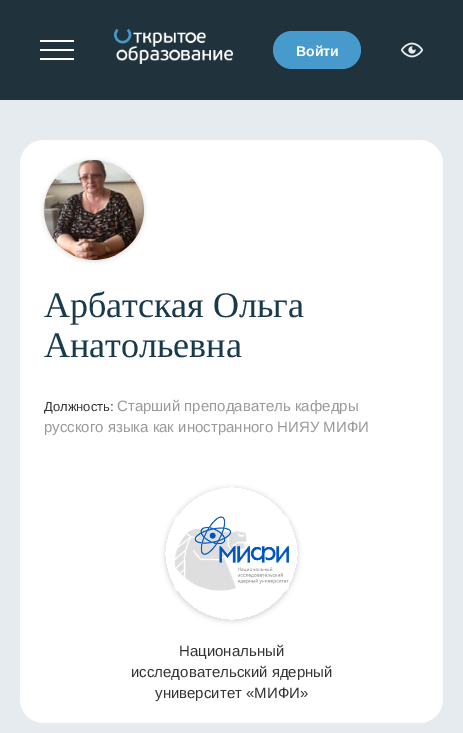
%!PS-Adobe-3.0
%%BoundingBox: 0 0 463 733
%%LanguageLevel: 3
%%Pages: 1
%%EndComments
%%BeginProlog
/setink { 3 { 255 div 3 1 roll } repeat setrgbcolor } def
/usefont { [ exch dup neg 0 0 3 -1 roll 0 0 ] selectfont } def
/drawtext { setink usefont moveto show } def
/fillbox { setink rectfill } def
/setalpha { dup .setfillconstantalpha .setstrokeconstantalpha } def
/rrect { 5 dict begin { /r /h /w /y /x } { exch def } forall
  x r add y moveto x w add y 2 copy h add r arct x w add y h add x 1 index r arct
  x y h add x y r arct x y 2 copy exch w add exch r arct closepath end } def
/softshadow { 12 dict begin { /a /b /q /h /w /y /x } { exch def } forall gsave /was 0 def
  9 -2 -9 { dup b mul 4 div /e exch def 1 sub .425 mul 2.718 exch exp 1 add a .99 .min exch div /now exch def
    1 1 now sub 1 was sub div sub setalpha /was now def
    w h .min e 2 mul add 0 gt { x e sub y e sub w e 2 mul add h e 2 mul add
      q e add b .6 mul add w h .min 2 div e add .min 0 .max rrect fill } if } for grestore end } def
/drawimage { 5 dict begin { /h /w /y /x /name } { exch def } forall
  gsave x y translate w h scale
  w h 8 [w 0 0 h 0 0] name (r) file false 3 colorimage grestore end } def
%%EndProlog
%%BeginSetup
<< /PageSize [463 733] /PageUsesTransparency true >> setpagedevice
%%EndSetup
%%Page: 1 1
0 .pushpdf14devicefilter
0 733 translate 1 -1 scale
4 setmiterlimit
0 0 463 733 229 235 239 fillbox
0 0 463 100 32 50 60 fillbox
40 40 34 2 255 255 255 fillbox
40 49 34 2 255 255 255 fillbox
40 58 34 2 255 255 255 fillbox
(assets/img1.rgb) 114 29 119 35 drawimage
71 154 204 setink
273 31 88 38 19 rrect fill
(Войти) 296 56 /LiberationSans-Bold 14 255 255 255 drawtext
(assets/img2.rgb) 401 42 22 16 drawimage
20 140 423 583 24 rrect fill
0 0 0 setink
44 161 100 100 50 2.5 0.15 softshadow
(assets/img3.rgb) 44 160 100 100 drawimage
(Арбатская Ольга) 44 317 /LiberationSerif-Regular 36 25 57 76 drawtext
(Анатольевна) 44 357 /LiberationSerif-Regular 36 25 57 76 drawtext
(Должность:) 44 411 /LiberationSans-Regular 13 51 51 51 drawtext
(Старший преподаватель кафедры) 117 411 /LiberationSans-Regular 15 153 153 153 drawtext
(русского языка как иностранного НИЯУ МИФИ) 44 432 /LiberationSans-Regular 15 153 153 153 drawtext
gsave
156 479 moveto 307 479 lineto 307 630 lineto 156 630 lineto closepath 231.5 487 moveto 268 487 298 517 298 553.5 curveto 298 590 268 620 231.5 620 curveto 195 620 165 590 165 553.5 curveto 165 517 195 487 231.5 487 curveto closepath eoclip newpath
0 0 0 setink
165 488 133 133 66.5 2.5 0.15 softshadow
grestore
(assets/img4.rgb) 174 516 115 75 drawimage
(Национальный) 179 656 /LiberationSans-Regular 15 51 51 51 drawtext
(исследовательский ядерный) 131 677 /LiberationSans-Regular 15 51 51 51 drawtext
(университет «МИФИ») 155 698 /LiberationSans-Regular 15 51 51 51 drawtext
.poppdf14devicefilter showpage
%%EOF
